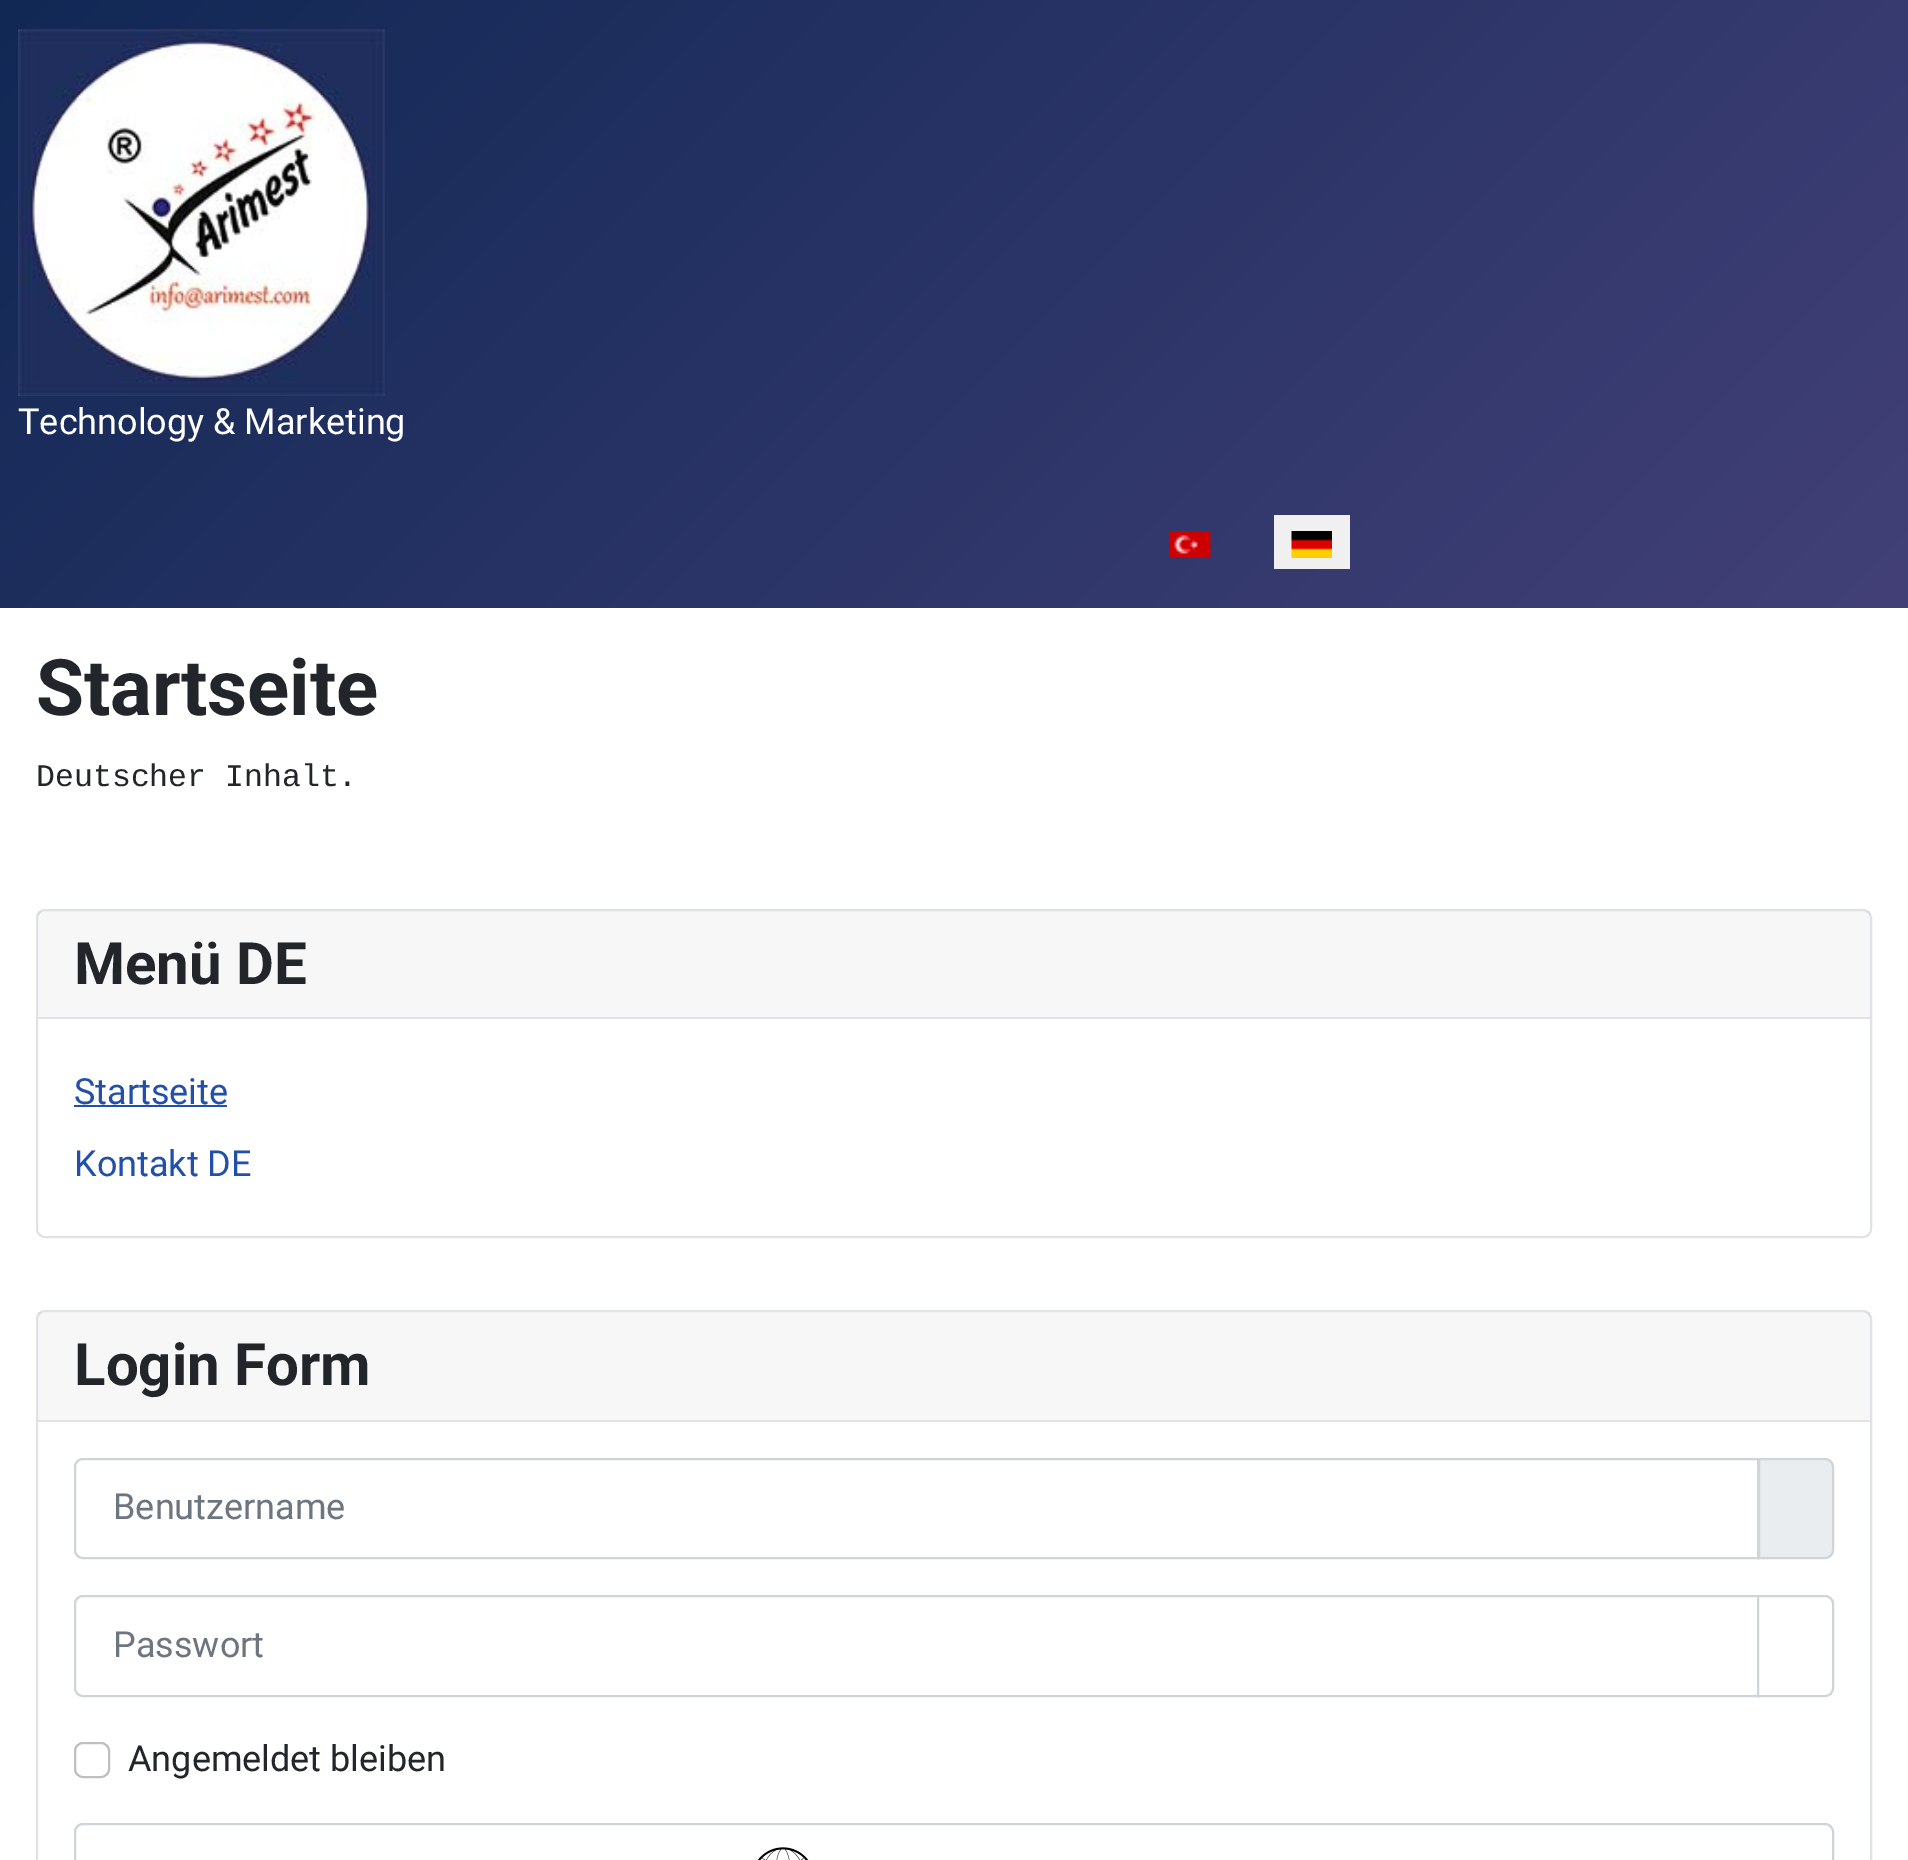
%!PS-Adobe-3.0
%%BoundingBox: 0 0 1908 1860
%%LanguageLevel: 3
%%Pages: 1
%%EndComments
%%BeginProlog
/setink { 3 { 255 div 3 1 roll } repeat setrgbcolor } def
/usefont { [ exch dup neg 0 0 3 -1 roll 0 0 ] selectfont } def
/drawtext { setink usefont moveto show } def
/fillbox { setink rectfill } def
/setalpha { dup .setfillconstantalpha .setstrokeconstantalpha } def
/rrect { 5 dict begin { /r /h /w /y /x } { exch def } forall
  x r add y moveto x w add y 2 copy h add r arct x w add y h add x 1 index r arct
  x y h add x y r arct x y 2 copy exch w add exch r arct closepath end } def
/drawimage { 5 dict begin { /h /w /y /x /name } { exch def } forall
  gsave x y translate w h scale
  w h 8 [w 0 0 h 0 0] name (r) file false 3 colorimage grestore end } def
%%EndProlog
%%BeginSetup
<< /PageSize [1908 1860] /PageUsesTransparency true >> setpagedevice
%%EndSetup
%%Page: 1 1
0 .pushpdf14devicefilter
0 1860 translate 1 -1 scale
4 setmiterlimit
0 0 1908 1860 255 255 255 fillbox
gsave 0 0 moveto 1908 0 lineto 1908 608 lineto 0 608 lineto closepath clip newpath
<< /ShadingType 2 /ColorSpace /DeviceRGB /Coords [325 -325 1583 933] /Extend [true true] /Function << /FunctionType 2 /Domain [0 1] /C0 [0.067 0.157 0.333] /C1 [0.259 0.251 0.467] /N 1 >> >> shfill grestore
(assets/img1.rgb) 18 29 367 367 drawimage
(Technology & Marketing) 18 434 /Roboto-Regular 36 255 255 255 drawtext
(assets/img2.rgb) 1170 531 41 27 drawimage
1274 515 76 54 240 240 240 fillbox
(assets/img3.rgb) 1291 531 41 27 drawimage
(Startseite) 36 715 /Roboto-Bold 78 34 38 42 drawtext
(Deutscher Inhalt.) 36 786 /LiberationMono-Regular 31.5 34 38 42 drawtext
223 227 231 setink
2 setlinewidth
37 910 1834 327 8 rrect stroke
0.03 setalpha
38 911 1832 106 0 0 0 fillbox
1 setalpha
38 1017 1832 2 223 227 231 fillbox
(Menü DE) 74 984 /Roboto-Bold 58.25 34 38 42 drawtext
(Startseite) 74 1104 /Roboto-Regular 36 34 79 170 drawtext
74 1105 153 2 34 79 170 fillbox
(Kontakt DE) 74 1176 /Roboto-Regular 36 34 79 170 drawtext
223 227 231 setink
37 1311 1834 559 8 rrect stroke
0.03 setalpha
38 1312 1832 108 0 0 0 fillbox
1 setalpha
38 1420 1832 2 223 227 231 fillbox
(Login Form) 74 1385 /Roboto-Bold 58.25 34 38 42 drawtext
234 237 240 setink
1758 1459 moveto 1825 1459 lineto 1829.5 1459 1833 1462.5 1833 1467 curveto 1833 1550 lineto 1833 1554.5 1829.5 1558 1825 1558 curveto 1758 1558 lineto closepath gsave fill grestore
206 212 218 setink
stroke
83 1459 moveto 1759 1459 lineto 1759 1558 lineto 83 1558 lineto 78.5 1558 75 1554.5 75 1550 curveto 75 1467 lineto 75 1462.5 78.5 1459 83 1459 curveto closepath stroke
(Benutzername) 113 1519 /Roboto-Regular 36 109 117 126 drawtext
206 212 218 setink
83 1596 moveto 1759 1596 lineto 1759 1696 lineto 83 1696 lineto 78.5 1696 75 1692.5 75 1688 curveto 75 1604 lineto 75 1599.5 78.5 1596 83 1596 curveto closepath stroke
(Passwort) 113 1657 /Roboto-Regular 36 109 117 126 drawtext
255 255 255 setink
1758 1596 moveto 1825 1596 lineto 1829.5 1596 1833 1599.5 1833 1604 curveto 1833 1688 lineto 1833 1692.5 1829.5 1696 1825 1696 curveto 1758 1696 lineto closepath gsave fill grestore
206 212 218 setink
stroke
191 191 191 setink
75 1743 34 34 8 rrect stroke
(Angemeldet bleiben) 128 1771 /Roboto-Regular 36 34 38 42 drawtext
206 212 218 setink
75 1824 1758 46 8 rrect stroke
(assets/img4.rgb) 757 1847 52 13 drawimage
.poppdf14devicefilter showpage
%%EOF
